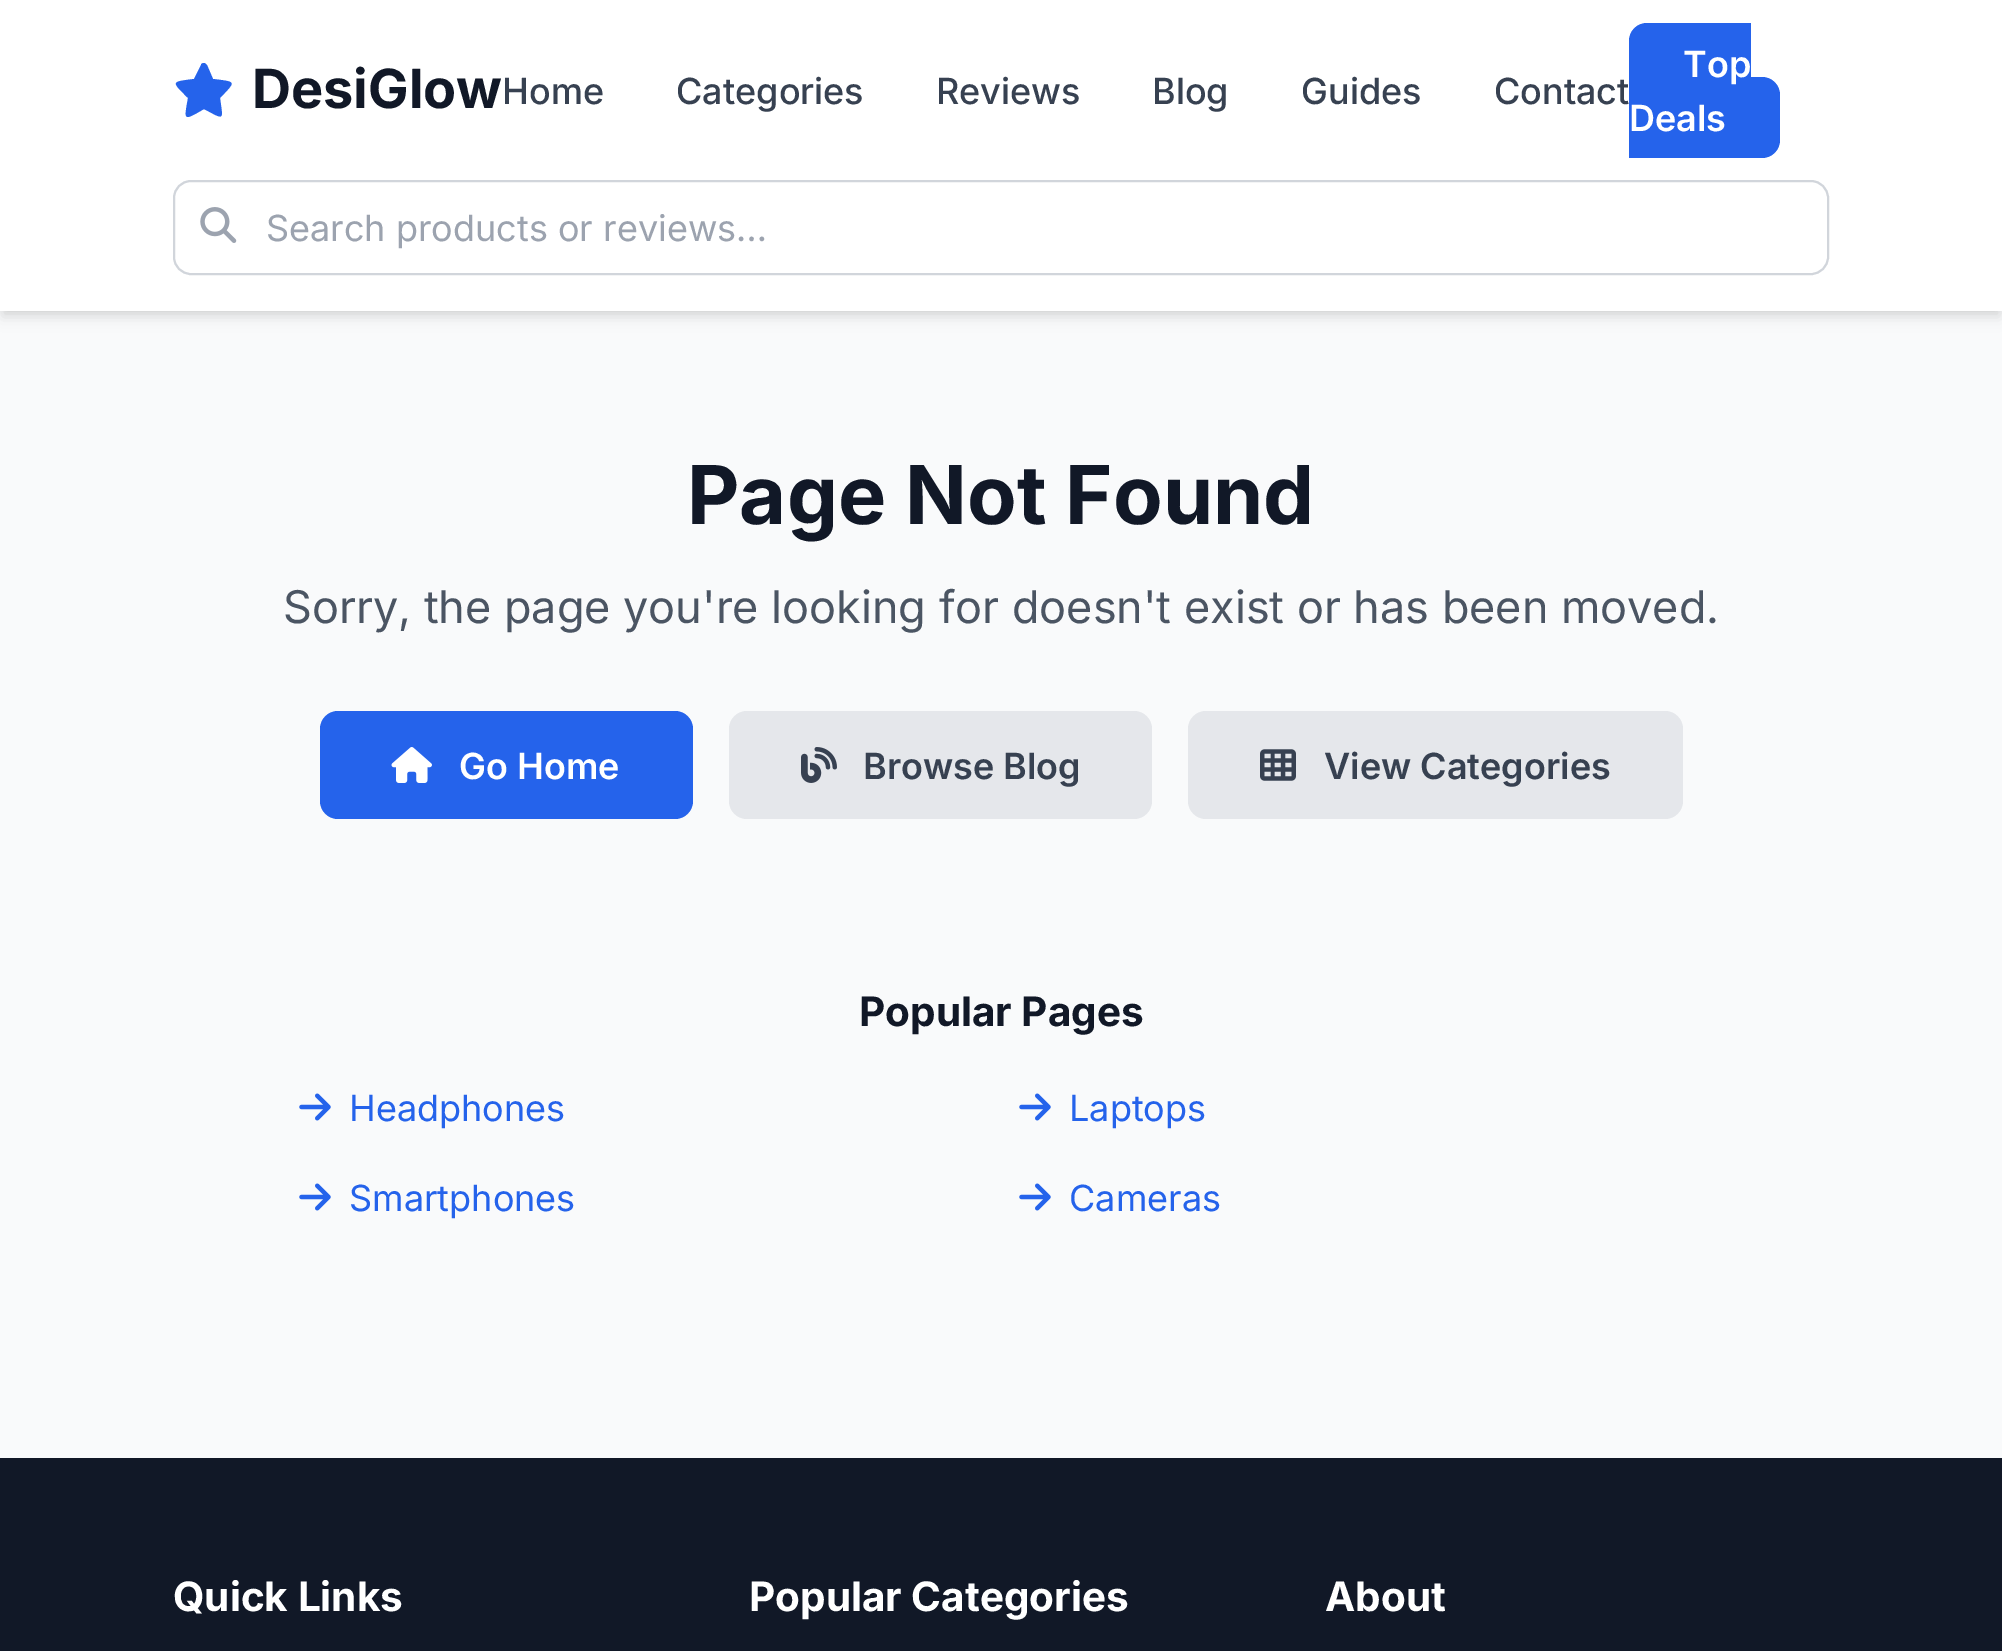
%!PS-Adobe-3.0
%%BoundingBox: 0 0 2002 1651
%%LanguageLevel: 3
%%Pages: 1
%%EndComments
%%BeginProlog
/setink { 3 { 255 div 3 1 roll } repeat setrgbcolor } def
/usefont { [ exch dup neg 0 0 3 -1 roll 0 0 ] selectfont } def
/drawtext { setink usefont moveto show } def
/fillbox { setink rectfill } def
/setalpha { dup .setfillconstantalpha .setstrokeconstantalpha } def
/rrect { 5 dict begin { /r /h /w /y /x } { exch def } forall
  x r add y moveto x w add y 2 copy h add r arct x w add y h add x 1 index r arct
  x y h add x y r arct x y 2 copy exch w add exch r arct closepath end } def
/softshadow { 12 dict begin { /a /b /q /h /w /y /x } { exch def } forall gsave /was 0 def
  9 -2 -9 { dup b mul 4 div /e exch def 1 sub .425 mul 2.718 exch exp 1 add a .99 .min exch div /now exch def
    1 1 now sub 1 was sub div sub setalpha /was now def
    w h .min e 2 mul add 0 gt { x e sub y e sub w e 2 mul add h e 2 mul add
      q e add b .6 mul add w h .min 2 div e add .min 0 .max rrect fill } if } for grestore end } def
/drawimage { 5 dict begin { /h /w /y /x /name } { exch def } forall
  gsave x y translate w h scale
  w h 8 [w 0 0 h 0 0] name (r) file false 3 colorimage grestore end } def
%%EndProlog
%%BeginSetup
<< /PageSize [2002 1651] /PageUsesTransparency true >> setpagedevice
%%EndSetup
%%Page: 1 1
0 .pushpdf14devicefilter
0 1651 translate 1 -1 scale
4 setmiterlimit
0 0 2002 1651 249 250 251 fillbox
gsave
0 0 moveto 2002 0 lineto 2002 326 lineto 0 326 lineto closepath 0 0 moveto 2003 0 lineto 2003 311 lineto 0 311 lineto closepath eoclip newpath
0 0 0 setink
5 9 1993 302 0 4.5 0.1 softshadow
grestore
gsave
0 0 moveto 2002 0 lineto 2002 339 lineto 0 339 lineto closepath 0 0 moveto 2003 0 lineto 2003 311 lineto 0 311 lineto closepath eoclip newpath
0 0 0 setink
2 11 1998 306 0 7 0.1 softshadow
grestore
0.95 setalpha
0 0 2002 311 255 255 255 fillbox
1 setalpha
37 99 235 setink
207 65 moveto 206 64 205 63 204 63 curveto 202 63 201 64 201 65 curveto 194 79 lineto 171 82 171 81 188 98 curveto 184 121 183 121 204 109 curveto 225 120 223 121 220 98 curveto 236 81 237 82 213 79 curveto closepath fill
(DesiGlow) 252 108 /Inter-Bold 54 17 24 39 drawtext
(Home) 502 104 /Inter-Medium 36 55 65 81 drawtext
(Categories) 676 104 /Inter-Medium 36 55 65 81 drawtext
(Reviews) 936 104 /Inter-Medium 36 55 65 81 drawtext
(Blog) 1152 104 /Inter-Medium 36 55 65 81 drawtext
(Guides) 1301 104 /Inter-Medium 36 55 65 81 drawtext
(Contact) 1494 104 /Inter-Medium 36 55 65 81 drawtext
37 99 235 setink
1647 23 moveto 1751 23 lineto 1751 104 lineto 1647 104 lineto 1637 104 1629 96 1629 86 curveto 1629 41 lineto 1629 31 1637 23 1647 23 curveto closepath fill
1629 77 moveto 1762 77 lineto 1772 77 1780 85 1780 95 curveto 1780 140 lineto 1780 150 1772 158 1762 158 curveto 1629 158 lineto closepath fill
(Top) 1683 77 /Inter-SemiBold 36 255 255 255 drawtext
(Deals) 1629 131 /Inter-SemiBold 36 255 255 255 drawtext
209 213 219 setink
2 setlinewidth
174 181 1654 93 17 rrect stroke
(assets/img1.rgb) 200 207 37 36 drawimage
(Search products or reviews…) 266 241 /Inter-Regular 36 156 163 175 drawtext
(Page Not Found) 687 524 /Inter-Bold 81 17 24 39 drawtext
(Sorry, the page you're looking for doesn't exist or has been moved.) 283 623 /Inter-Regular 45 75 85 99 drawtext
37 99 235 setink
320 711 373 108 18 rrect fill
(assets/img2.rgb) 391 747 41 36 drawimage
(Go Home) 459 779 /Inter-SemiBold 36 255 255 255 drawtext
229 231 235 setink
729 711 423 108 18 rrect fill
(assets/img3.rgb) 801 747 36 36 drawimage
(Browse Blog) 863 779 /Inter-SemiBold 36 55 65 81 drawtext
229 231 235 setink
1188 711 495 108 18 rrect fill
(assets/img4.rgb) 1260 749 36 32 drawimage
(View Categories) 1324 779 /Inter-SemiBold 36 55 65 81 drawtext
(Popular Pages) 859 1026 /Inter-Bold 40.5 17 24 39 drawtext
(assets/img5.rgb) 299 1093 32 28 drawimage
(Headphones) 349 1121 /Inter-Regular 36 37 99 235 drawtext
(assets/img5.rgb) 1019 1093 32 28 drawimage
(Laptops) 1069 1121 /Inter-Regular 36 37 99 235 drawtext
(assets/img5.rgb) 299 1183 32 28 drawimage
(Smartphones) 349 1211 /Inter-Regular 36 37 99 235 drawtext
(assets/img5.rgb) 1019 1183 32 28 drawimage
(Cameras) 1069 1211 /Inter-Regular 36 37 99 235 drawtext
0 1458 2002 193 17 24 39 fillbox
(Quick Links) 173 1611 /Inter-Bold 40.5 255 255 255 drawtext
(Popular Categories) 749 1611 /Inter-Bold 40.5 255 255 255 drawtext
(About) 1325 1611 /Inter-Bold 40.5 255 255 255 drawtext
.poppdf14devicefilter showpage
%%EOF
